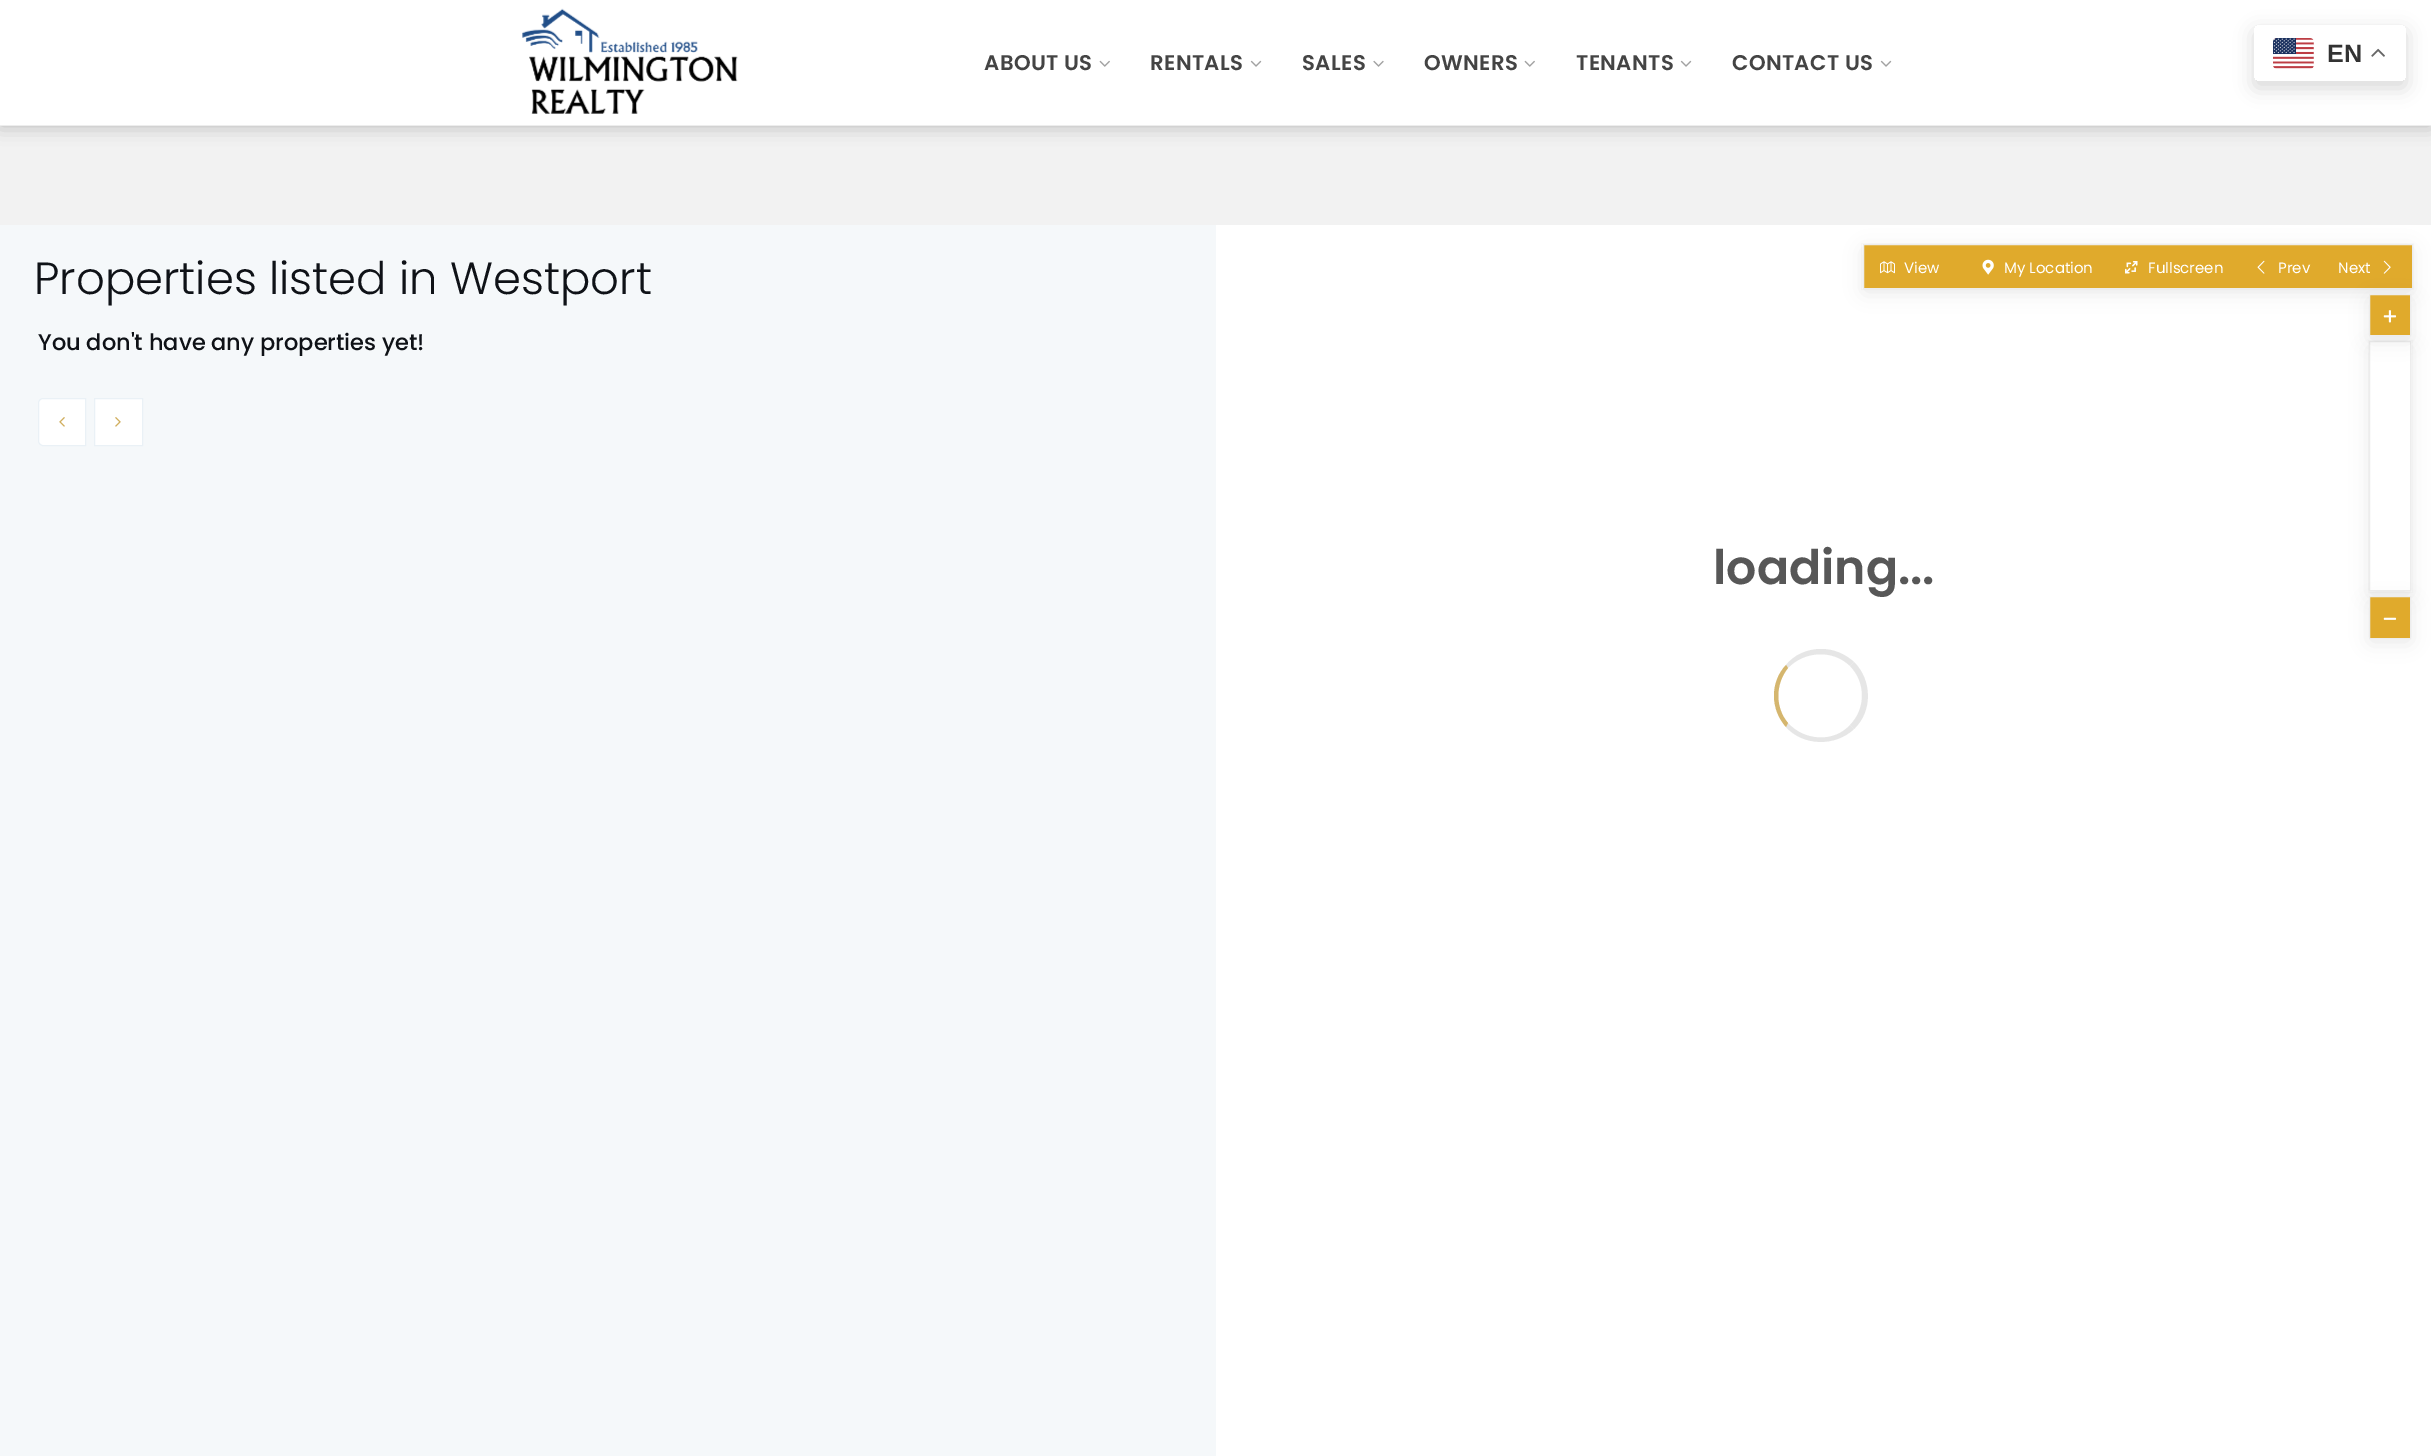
%!PS-Adobe-3.0
%%BoundingBox: 0 0 2431 1456
%%LanguageLevel: 3
%%Pages: 1
%%EndComments
%%BeginProlog
/setink { 3 { 255 div 3 1 roll } repeat setrgbcolor } def
/usefont { [ exch dup neg 0 0 3 -1 roll 0 0 ] selectfont } def
/drawtext { setink usefont moveto show } def
/fillbox { setink rectfill } def
/setalpha { dup .setfillconstantalpha .setstrokeconstantalpha } def
/rrect { 5 dict begin { /r /h /w /y /x } { exch def } forall
  x r add y moveto x w add y 2 copy h add r arct x w add y h add x 1 index r arct
  x y h add x y r arct x y 2 copy exch w add exch r arct closepath end } def
/softshadow { 12 dict begin { /a /b /q /h /w /y /x } { exch def } forall gsave /was 0 def
  9 -2 -9 { dup b mul 4 div /e exch def 1 sub .425 mul 2.718 exch exp 1 add a .99 .min exch div /now exch def
    1 1 now sub 1 was sub div sub setalpha /was now def
    w h .min e 2 mul add 0 gt { x e sub y e sub w e 2 mul add h e 2 mul add
      q e add b .6 mul add w h .min 2 div e add .min 0 .max rrect fill } if } for grestore end } def
/drawimage { 5 dict begin { /h /w /y /x /name } { exch def } forall
  gsave x y translate w h scale
  w h 8 [w 0 0 h 0 0] name (r) file false 3 colorimage grestore end } def
%%EndProlog
%%BeginSetup
<< /PageSize [2431 1456] /PageUsesTransparency true >> setpagedevice
%%EndSetup
%%Page: 1 1
0 .pushpdf14devicefilter
0 1456 translate 1 -1 scale
4 setmiterlimit
0 0 2431 1456 242 242 242 fillbox
0 0 0 setink
0 0 2431 125 0 9.5 0.26 softshadow
0 0 2431 125 255 255 255 fillbox
gsave
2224 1 moveto 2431 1 lineto 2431 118 lineto 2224 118 lineto closepath 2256.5 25 moveto 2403.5 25 lineto 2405 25 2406 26 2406 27.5 curveto 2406 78.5 lineto 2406 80 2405 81 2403.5 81 curveto 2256.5 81 lineto 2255 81 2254 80 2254 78.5 curveto 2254 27.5 lineto 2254 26 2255 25 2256.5 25 curveto closepath eoclip newpath
0 0 0 setink
2254 31 152 57 2.5 9.5 0.15 softshadow
grestore
(assets/img1.rgb) 2273 38 41 31 drawimage
(EN) 2327 62 /LiberationSans-Bold 25 51 51 51 drawtext
(assets/img2.rgb) 2371 48 14 9 drawimage
0 125 2431 1 237 237 237 fillbox
(assets/img3.rgb) 522 8 216 106 drawimage
/Poppins-SemiBold 21.25 usefont
68 68 68 setink
984 70 moveto 0.4 0 (ABOUT US) ashow
(assets/img4.rgb) 1099 60 11 7 drawimage
1150 70 moveto 0.4 0 (RENTALS) ashow
(assets/img5.rgb) 1250 60 12 7 drawimage
1302 70 moveto 0.4 0 (SALES) ashow
(assets/img6.rgb) 1373 60 11 7 drawimage
1424 70 moveto 0.4 0 (OWNERS) ashow
(assets/img4.rgb) 1524 60 11 7 drawimage
1576 70 moveto 0.4 0 (TENANTS) ashow
(assets/img5.rgb) 1680 60 12 7 drawimage
1732 70 moveto 0.4 0 (CONTACT US) ashow
(assets/img5.rgb) 1880 60 12 7 drawimage
0 225 1216 1231 245 248 250 fillbox
(Properties listed in Westport) 34 294 /Poppins-Light 45 15 18 23 drawtext
(You don't have any properties yet!) 38 350 /Poppins-Medium 22.5 15 18 23 drawtext
255 255 255 setink
43 398.5 moveto 85.5 398.5 lineto 85.5 445.5 lineto 43 445.5 lineto 40.5 445.5 38.5 443.5 38.5 441 curveto 38.5 403 lineto 38.5 400.5 40.5 398.5 43 398.5 curveto closepath gsave fill grestore
234 241 246 setink
stroke
(assets/img7.rgb) 59 417 6 10 drawimage
255 255 255 setink
94.5 398.5 moveto 142.5 398.5 lineto 142.5 445.5 lineto 94.5 445.5 lineto closepath gsave fill grestore
234 241 246 setink
stroke
(assets/img8.rgb) 115 417 6 10 drawimage
1216 225 1215 1231 255 255 255 fillbox
250 250 250 setink
1861.5 243.5 552 46 rectstroke
0 0 0 setink
1865 251 545 40 0 10 0.1 softshadow
224 170 44 setink
1863.5 244.5 moveto 2412.5 244.5 lineto 2412.5 288.5 lineto 1863.5 288.5 lineto closepath gsave fill grestore
237 237 237 setink
stroke
(assets/img9.rgb) 1880 261 15 13 drawimage
(View) 1904 273 /Poppins-Regular 15 255 255 255 drawtext
(assets/img10.rgb) 1982 259 12 16 drawimage
(My Location) 2004 273 /Poppins-Regular 15 255 255 255 drawtext
(assets/img11.rgb) 2125 261 13 13 drawimage
(Fullscreen) 2148 273 /Poppins-Regular 15 255 255 255 drawtext
(assets/img12.rgb) 2257 260 8 14 drawimage
(Prev) 2278 273 /Poppins-Regular 15 255 255 255 drawtext
(Next) 2338 273 /Poppins-Regular 15 255 255 255 drawtext
(assets/img13.rgb) 2383 260 8 14 drawimage
250 250 250 setink
2368.5 340.5 44 252 rectstroke
gsave
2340 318 moveto 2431 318 lineto 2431 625 lineto 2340 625 lineto closepath 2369 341 moveto 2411 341 lineto 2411 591 lineto 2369 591 lineto closepath eoclip newpath
0 0 0 setink
2371 349 38 245 0 10 0.1 softshadow
grestore
237 237 237 setink
2369.5 341.5 41 249 rectstroke
0 0 0 setink
2371 301 38 38 0 10 0.1 softshadow
224 170 44 setink
2369.5 294.5 moveto 2410.5 294.5 lineto 2410.5 335.5 lineto 2369.5 335.5 lineto closepath gsave fill grestore
237 237 237 setink
stroke
(assets/img14.rgb) 2383 310 14 13 drawimage
0 0 0 setink
2371 604 38 37 0 10 0.1 softshadow
224 170 44 setink
2369.5 596.5 moveto 2410.5 596.5 lineto 2410.5 638.5 lineto 2369.5 638.5 lineto closepath gsave fill grestore
237 237 237 setink
stroke
(assets/img15.rgb) 2383 617 14 3 drawimage
(loading...) 1713 584 /Poppins-SemiBold 47.5 87 87 87 drawtext
230 230 230 setink
1821 649 moveto 1807 649 1794 655 1786 665 curveto 1788 668 lineto 1804 651 1833 649 1850 666 curveto 1854 662 lineto 1845 654 1834 649 1821 649 curveto closepath fill
1854 662 moveto 1872 680 1873 711 1854 729 curveto 1850 725 lineto 1866 709 1866 682 1850 666 curveto closepath fill
1854 729 moveto 1835 747 1803 746 1786 727 curveto 1788 723 lineto 1804 741 1834 743 1850 725 curveto closepath fill
213 182 110 setink
1786 665 moveto 1770 682 1770 709 1786 727 curveto 1788 723 lineto 1775 708 1775 684 1788 668 curveto closepath fill
.poppdf14devicefilter showpage
%%EOF
